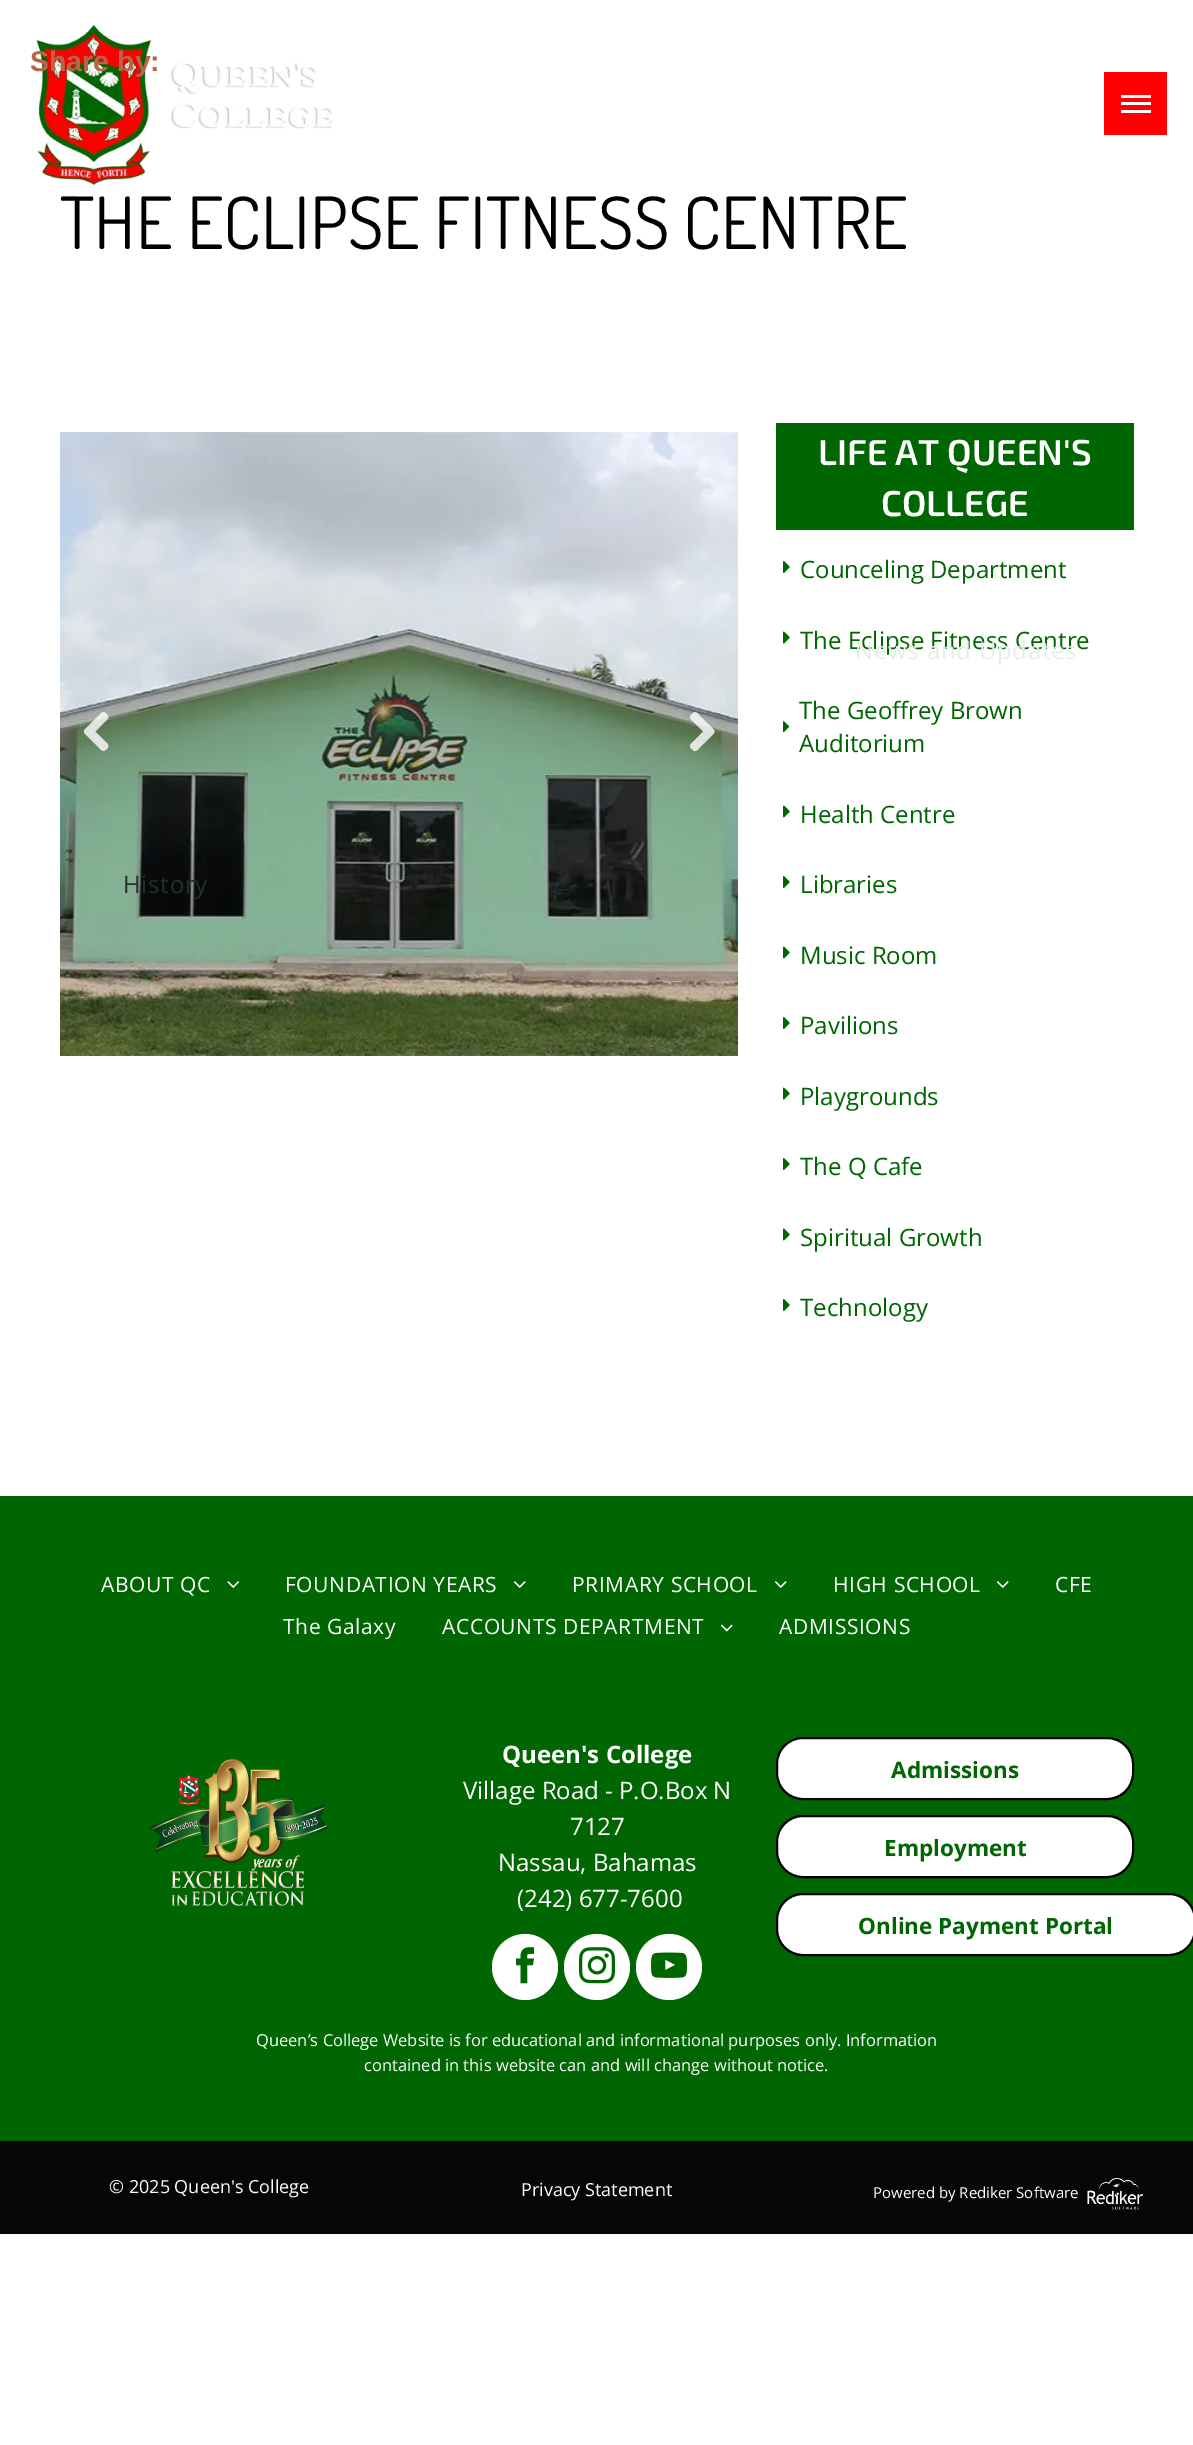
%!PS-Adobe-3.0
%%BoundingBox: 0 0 1193 2445
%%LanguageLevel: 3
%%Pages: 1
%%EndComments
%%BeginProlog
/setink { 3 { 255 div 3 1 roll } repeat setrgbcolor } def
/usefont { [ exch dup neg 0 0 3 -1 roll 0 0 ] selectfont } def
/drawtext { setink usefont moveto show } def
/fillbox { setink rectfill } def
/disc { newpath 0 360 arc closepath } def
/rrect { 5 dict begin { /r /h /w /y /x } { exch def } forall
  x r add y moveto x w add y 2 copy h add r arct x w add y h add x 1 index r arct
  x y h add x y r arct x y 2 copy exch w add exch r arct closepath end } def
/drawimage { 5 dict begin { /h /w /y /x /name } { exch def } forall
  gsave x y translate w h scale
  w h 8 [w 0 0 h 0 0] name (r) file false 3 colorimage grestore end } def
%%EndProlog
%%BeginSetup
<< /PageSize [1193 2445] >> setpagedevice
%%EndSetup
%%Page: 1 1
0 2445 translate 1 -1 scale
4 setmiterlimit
0 0 1193 2445 255 255 255 fillbox
(THE ECLIPSE FITNESS CENTRE) 60 249 /Dosis-Regular 72 0 0 0 drawtext
(assets/img1.rgb) 36 24 297 173 drawimage
(Share by:) 30 71 /LiberationSans-Bold 28.5 184 100 74 drawtext
1104 72 63 63 254 0 2 fillbox
1121 95 30 3 255 255 255 fillbox
1121 102 30 3 255 255 255 fillbox
1121 110 30 3 255 255 255 fillbox
(assets/img2.rgb) 60 432 678 624 drawimage
(assets/img3.rgb) 83 712 26 39 drawimage
(assets/img4.rgb) 690 712 25 40 drawimage
776 423 358 107 0 102 2 fillbox
(LIFE AT QUEEN'S) 818 465 /Exo2-SemiBold 36 255 255 255 drawtext
(COLLEGE) 881 516 /Exo2-SemiBold 36 255 255 255 drawtext
(assets/img5.rgb) 783 561 7 12 drawimage
(Counceling Department) 800 578 /OpenSans-Regular 24 0 102 2 drawtext
(assets/img6.rgb) 783 631 7 13 drawimage
(The Eclipse Fitness Centre) 800 649 /OpenSans-Regular 24 0 102 2 drawtext
(assets/img7.rgb) 783 721 7 12 drawimage
(The Geoffrey Brown) 799 719 /OpenSans-Regular 24 0 102 2 drawtext
(Auditorium) 799 752 /OpenSans-Regular 24 0 102 2 drawtext
(assets/img6.rgb) 783 805 7 13 drawimage
(Health Centre) 800 823 /OpenSans-Regular 24 0 102 2 drawtext
(assets/img5.rgb) 783 876 7 12 drawimage
(Libraries) 800 893 /OpenSans-Regular 24 0 102 2 drawtext
(assets/img6.rgb) 783 946 7 13 drawimage
(Music Room) 800 964 /OpenSans-Regular 24 0 102 2 drawtext
(assets/img5.rgb) 783 1017 7 12 drawimage
(Pavilions) 800 1034 /OpenSans-Regular 24 0 102 2 drawtext
(assets/img6.rgb) 783 1087 7 13 drawimage
(Playgrounds) 800 1105 /OpenSans-Regular 24 0 102 2 drawtext
(assets/img5.rgb) 783 1158 7 12 drawimage
(The Q Cafe) 800 1175 /OpenSans-Regular 24 0 102 2 drawtext
(assets/img6.rgb) 783 1228 7 13 drawimage
(Spiritual Growth) 800 1246 /OpenSans-Regular 24 0 102 2 drawtext
(assets/img5.rgb) 783 1299 7 12 drawimage
(Technology) 800 1316 /OpenSans-Regular 24 0 102 2 drawtext
0 1496 1193 645 0 102 2 fillbox
37 47 41 setink
123 893 moveto 0.75 0 (History) ashow
/OpenSans-Regular 21 usefont
255 255 255 setink
101 1592 moveto 0.6 0 (ABOUT QC) ashow
(assets/img8.rgb) 227 1581 12 7 drawimage
285 1592 moveto 0.6 0 (FOUNDATION YEARS) ashow
(assets/img9.rgb) 514 1581 12 7 drawimage
572 1592 moveto 0.6 0 (PRIMARY SCHOOL) ashow
(assets/img9.rgb) 775 1581 12 7 drawimage
/OpenSans-Regular 24 usefont
229 240 230 setink
855 659 moveto 0.75 0 (News and Updates) ashow
/OpenSans-Regular 21 usefont
255 255 255 setink
833 1592 moveto 0.6 0 (HIGH SCHOOL) ashow
(assets/img9.rgb) 997 1581 12 7 drawimage
1055 1592 moveto 0.6 0 (CFE) ashow
283 1634 moveto 0.6 0 (The Galaxy) ashow
442 1634 moveto 0.6 0 (ACCOUNTS DEPARTMENT) ashow
(assets/img10.rgb) 720 1624 13 8 drawimage
779 1634 moveto 0.6 0 (ADMISSIONS) ashow
(assets/img11.rgb) 150 1759 179 147 drawimage
(Queen's College) 502 1763 /OpenSans-Bold 24 255 255 255 drawtext
(Village Road - P.O.Box N) 463 1799 /OpenSans-Regular 24 255 255 255 drawtext
(7127) 570 1835 /OpenSans-Regular 24 255 255 255 drawtext
(Nassau, Bahamas) 498 1871 /OpenSans-Regular 24 255 255 255 drawtext
(\(242\) 677-7600) 517 1907 /OpenSans-Regular 24 255 255 255 drawtext
525 1967 33 disc fill
(assets/img12.rgb) 516 1947 19 37 drawimage
597 1967 33 disc fill
(assets/img13.rgb) 579 1947 36 37 drawimage
669 1967 33 disc fill
(assets/img14.rgb) 651 1952 37 26 drawimage
777 1738 356 61 26 rrect gsave fill grestore
0 0 0 setink
2 setlinewidth
stroke
(Admissions) 891 1778 /OpenSans-Bold 22.5 0 102 2 drawtext
255 255 255 setink
777 1816 356 61 26 rrect gsave fill grestore
0 0 0 setink
stroke
(Employment) 884 1856 /OpenSans-Bold 22.5 0 102 2 drawtext
255 255 255 setink
777 1894 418 61 26 rrect gsave fill grestore
0 0 0 setink
stroke
(Online Payment Portal) 858 1934 /OpenSans-Bold 22.5 0 102 2 drawtext
(Queen’s College Website is for educational and informational purposes only. Information) 256 2046 /OpenSans-Regular 16.5 255 255 255 drawtext
(contained in this website can and will change without notice.) 364 2071 /OpenSans-Regular 16.5 255 255 255 drawtext
0 2141 1193 93 6 6 6 fillbox
(© 2025 Queen's College) 109 2193 /OpenSans-Regular 18 255 255 255 drawtext
(Privacy Statement) 521 2196 /OpenSans-Regular 18 255 255 255 drawtext
(Powered by Rediker Software) 873 2198 /OpenSans-Regular 15 255 255 255 drawtext
(assets/img15.rgb) 1087 2178 56 32 drawimage
showpage
%%EOF
